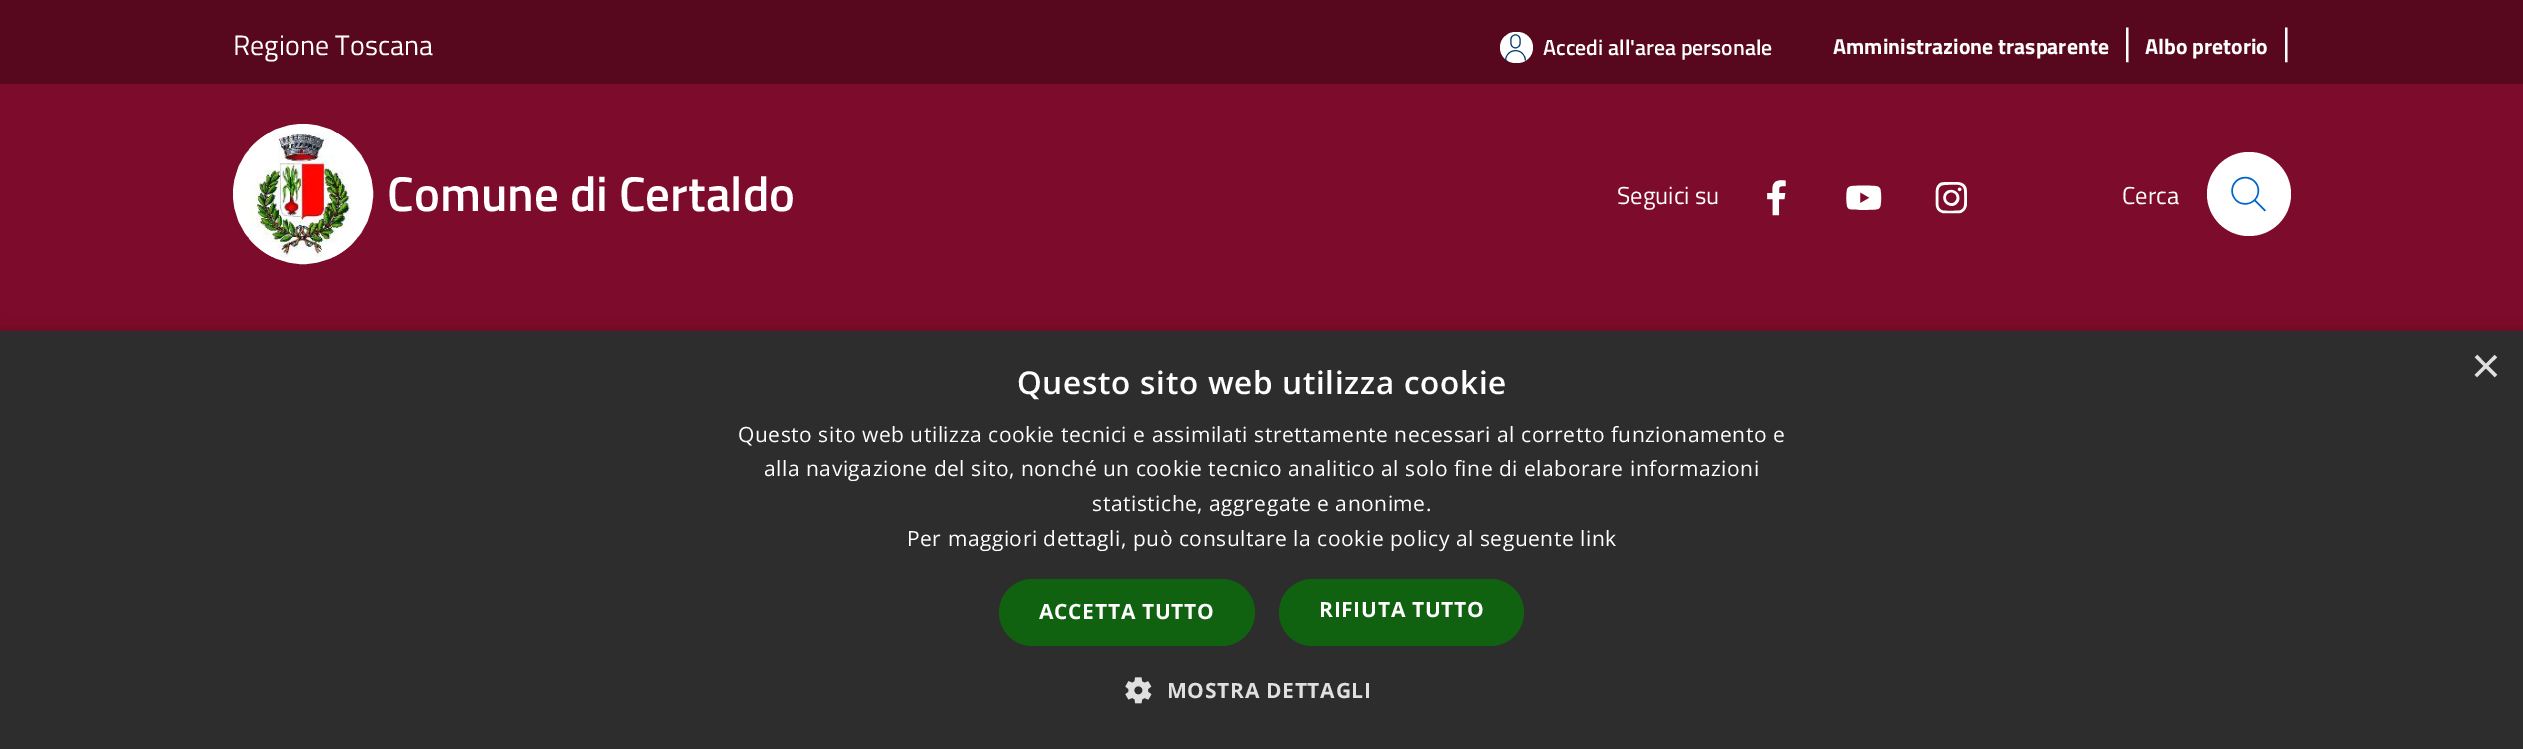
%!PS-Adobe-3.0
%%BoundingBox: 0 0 2523 749
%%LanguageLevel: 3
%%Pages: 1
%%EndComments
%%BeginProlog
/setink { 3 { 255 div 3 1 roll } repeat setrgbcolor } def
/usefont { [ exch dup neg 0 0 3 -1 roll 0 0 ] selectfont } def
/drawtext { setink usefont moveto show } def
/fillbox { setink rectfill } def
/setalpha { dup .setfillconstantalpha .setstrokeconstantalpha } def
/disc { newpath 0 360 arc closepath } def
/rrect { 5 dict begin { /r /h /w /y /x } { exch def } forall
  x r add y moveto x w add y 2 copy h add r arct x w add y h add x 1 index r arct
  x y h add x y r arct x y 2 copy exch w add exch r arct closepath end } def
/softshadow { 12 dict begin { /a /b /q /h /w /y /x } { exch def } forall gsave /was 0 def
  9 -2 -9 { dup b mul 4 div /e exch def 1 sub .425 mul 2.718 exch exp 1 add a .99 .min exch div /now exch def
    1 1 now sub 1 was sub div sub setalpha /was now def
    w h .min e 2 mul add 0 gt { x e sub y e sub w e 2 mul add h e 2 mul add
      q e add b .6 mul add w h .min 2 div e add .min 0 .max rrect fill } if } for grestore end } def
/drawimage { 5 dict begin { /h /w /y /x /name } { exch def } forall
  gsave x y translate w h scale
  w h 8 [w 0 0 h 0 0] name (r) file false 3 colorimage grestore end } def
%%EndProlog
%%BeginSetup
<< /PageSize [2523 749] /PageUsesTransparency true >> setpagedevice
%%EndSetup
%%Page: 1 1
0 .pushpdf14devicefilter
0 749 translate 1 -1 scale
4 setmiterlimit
0 0 2523 749 87 7 30 fillbox
(Regione Toscana) 233 55 /TitilliumWeb-Regular 28 255 255 255 drawtext
1500 32 33 31 15.5 rrect fill
(assets/img1.rgb) 1505 34 21 27 drawimage
(Accedi all'area personale) 1543 55 /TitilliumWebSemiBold-SemiBold 21.75 255 255 255 drawtext
(Amministrazione trasparente) 1833 54 /TitilliumWeb-Bold 21.75 255 255 255 drawtext
(|) 2123 54 /TitilliumWeb-Regular 37 255 255 255 drawtext
(Albo pretorio) 2145 54 /TitilliumWeb-Bold 21.75 255 255 255 drawtext
(|) 2282 54 /TitilliumWeb-Regular 37 255 255 255 drawtext
0 84 2523 247 125 11 43 fillbox
255 255 255 setink
303 194 69 disc gsave fill grestore
2 setlinewidth
stroke
(assets/img2.rgb) 249 133 103 124 drawimage
(Comune di Certaldo) 387 211 /TitilliumWebSemiBold-SemiBold 49 255 255 255 drawtext
(Seguici su) 1617 204 /TitilliumWeb-Regular 24.5 255 255 255 drawtext
(assets/img3.rgb) 1767 180 19 36 drawimage
(assets/img4.rgb) 1846 185 36 25 drawimage
(assets/img5.rgb) 1935 182 32 32 drawimage
(Cerca) 2122 204 /TitilliumWeb-Regular 24.5 255 255 255 drawtext
2249 194 42 disc fill
(assets/img6.rgb) 2231 176 35 36 drawimage
0 0 0 setink
2 334 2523 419 0 7 0.35 softshadow
0 331 2523 418 45 45 45 fillbox
(×) 2471 383 /LiberationSans-Regular 51 224 224 224 drawtext
/OpenSans-SemiBold 31.5 usefont
255 255 255 setink
1017 394 moveto 0.7 0 (Questo sito web utilizza cookie) ashow
/OpenSans-Regular 21 usefont
738 442 moveto 0.53 0 (Questo sito web utilizza cookie tecnici e assimilati strettamente necessari al corretto funzionamento e) ashow
764 476 moveto 0.53 0 (alla navigazione del sito, nonché un cookie tecnico analitico al solo fine di elaborare informazioni) ashow
1092 511 moveto 0.53 0 (statistiche, aggregate e anonime.) ashow
907 546 moveto 0.53 0 (Per maggiori dettagli, può consultare la cookie policy al seguente link) ashow
16 97 16 setink
999 579 256 67 33.5 rrect fill
/OpenSans-Bold 21 usefont
255 255 255 setink
1039 619 moveto 0.7 0 (ACCETTA TUTTO) ashow
16 97 16 setink
1279 579 245 67 33.5 rrect fill
255 255 255 setink
1319 617 moveto 0.7 0 (RIFIUTA TUTTO) ashow
(assets/img7.rgb) 1125 677 27 27 drawimage
224 224 224 setink
1167 698 moveto 0.7 0 (MOSTRA DETTAGLI) ashow
.poppdf14devicefilter showpage
%%EOF
